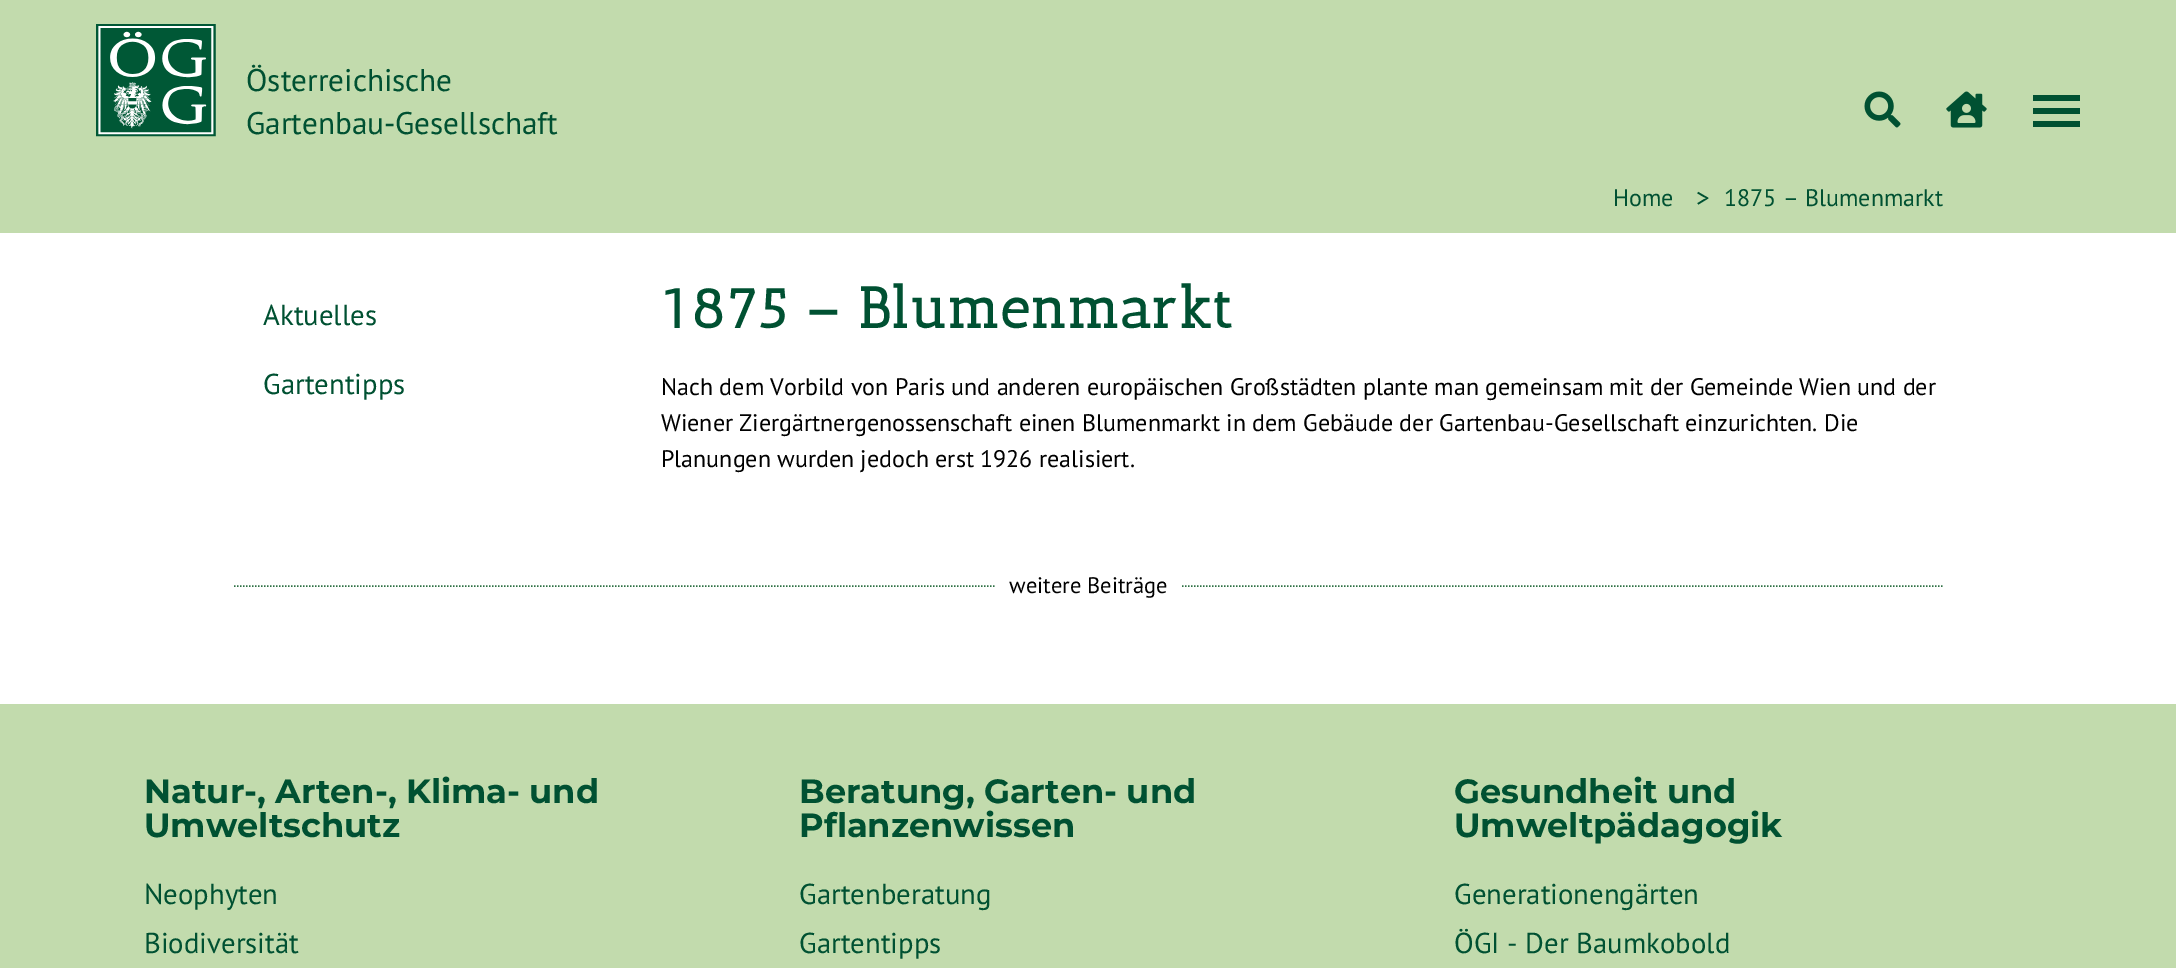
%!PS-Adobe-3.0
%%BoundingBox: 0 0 2176 968
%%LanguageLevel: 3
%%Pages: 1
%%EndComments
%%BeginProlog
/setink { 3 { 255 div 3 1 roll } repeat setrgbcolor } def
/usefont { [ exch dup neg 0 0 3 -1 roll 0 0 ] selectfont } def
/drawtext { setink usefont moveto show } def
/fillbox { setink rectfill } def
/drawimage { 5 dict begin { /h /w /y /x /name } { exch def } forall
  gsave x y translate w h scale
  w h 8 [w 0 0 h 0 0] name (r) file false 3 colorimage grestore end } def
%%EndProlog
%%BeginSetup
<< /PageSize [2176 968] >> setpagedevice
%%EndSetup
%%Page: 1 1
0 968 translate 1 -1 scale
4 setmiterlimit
0 0 2176 968 255 255 255 fillbox
0 0 2176 233 194 219 173 fillbox
(assets/img1.rgb) 96 24 120 113 drawimage
(Österreichische) 246 91 /PTSans-Regular 31.25 0 81 50 drawtext
(Gartenbau-Gesellschaft) 246 134 /PTSans-Regular 31.25 0 81 50 drawtext
(assets/img2.rgb) 1864 91 37 37 drawimage
(assets/img3.rgb) 1946 91 41 37 drawimage
2033 95 47 6 0 81 50 fillbox
2033 108 47 6 0 81 50 fillbox
2033 121 47 6 0 81 50 fillbox
(Home) 1613 206 /PTSans-Regular 24 0 81 50 drawtext
(>) 1696 207 /PTSans-Regular 27 0 81 50 drawtext
(1875 – Blumenmarkt) 1724 206 /PTSans-Regular 24 0 81 50 drawtext
(Aktuelles) 263 325 /PTSans-Regular 28.75 0 81 50 drawtext
(Gartentipps) 263 394 /PTSans-Regular 28.75 0 81 50 drawtext
/AnticSlab-Bold 57.5 usefont
661 328 moveto 0.75 0 (1875 – Blumenmarkt) ashow
(Nach dem Vorbild von Paris und anderen europäischen Großstädten plante man gemeinsam mit der Gemeinde Wien und der) 661 395 /PTSans-Regular 24 0 0 0 drawtext
(Wiener Ziergärtnergenossenschaft einen Blumenmarkt in dem Gebäude der Gartenbau-Gesellschaft einzurichten. Die) 661 431 /PTSans-Regular 24 0 0 0 drawtext
(Planungen wurden jedoch erst 1926 realisiert.) 661 467 /PTSans-Regular 24 0 0 0 drawtext
46 112 68 setink
1.5 setlinewidth
[1.5 1.5] 0 setdash
234 586 moveto 994.5 586 lineto stroke
(weitere Beiträge) 1009 593 /PTSans-Regular 22.5 0 0 0 drawtext
46 112 68 setink
1182 586 moveto 1944 586 lineto stroke
0 704 2176 264 194 219 173 fillbox
(Natur-, Arten-, Klima- und) 144 803 /Montserrat-Thin 33.6 0 81 50 drawtext
(Umweltschutz) 144 837 /Montserrat-Thin 33.6 0 81 50 drawtext
(Neophyten) 144 904 /PTSans-Regular 28.75 0 81 50 drawtext
(Biodiversität) 144 953 /PTSans-Regular 28.75 0 81 50 drawtext
(Beratung, Garten- und) 799 803 /Montserrat-Thin 33.6 0 81 50 drawtext
(Pflanzenwissen) 799 837 /Montserrat-Thin 33.6 0 81 50 drawtext
(Gartenberatung) 799 904 /PTSans-Regular 28.75 0 81 50 drawtext
(Gartentipps) 799 953 /PTSans-Regular 28.75 0 81 50 drawtext
(Gesundheit und) 1454 803 /Montserrat-Thin 33.6 0 81 50 drawtext
(Umweltpädagogik) 1454 837 /Montserrat-Thin 33.6 0 81 50 drawtext
(Generationengärten) 1454 904 /PTSans-Regular 28.75 0 81 50 drawtext
(ÖGI - Der Baumkobold) 1454 953 /PTSans-Regular 28.75 0 81 50 drawtext
showpage
%%EOF
